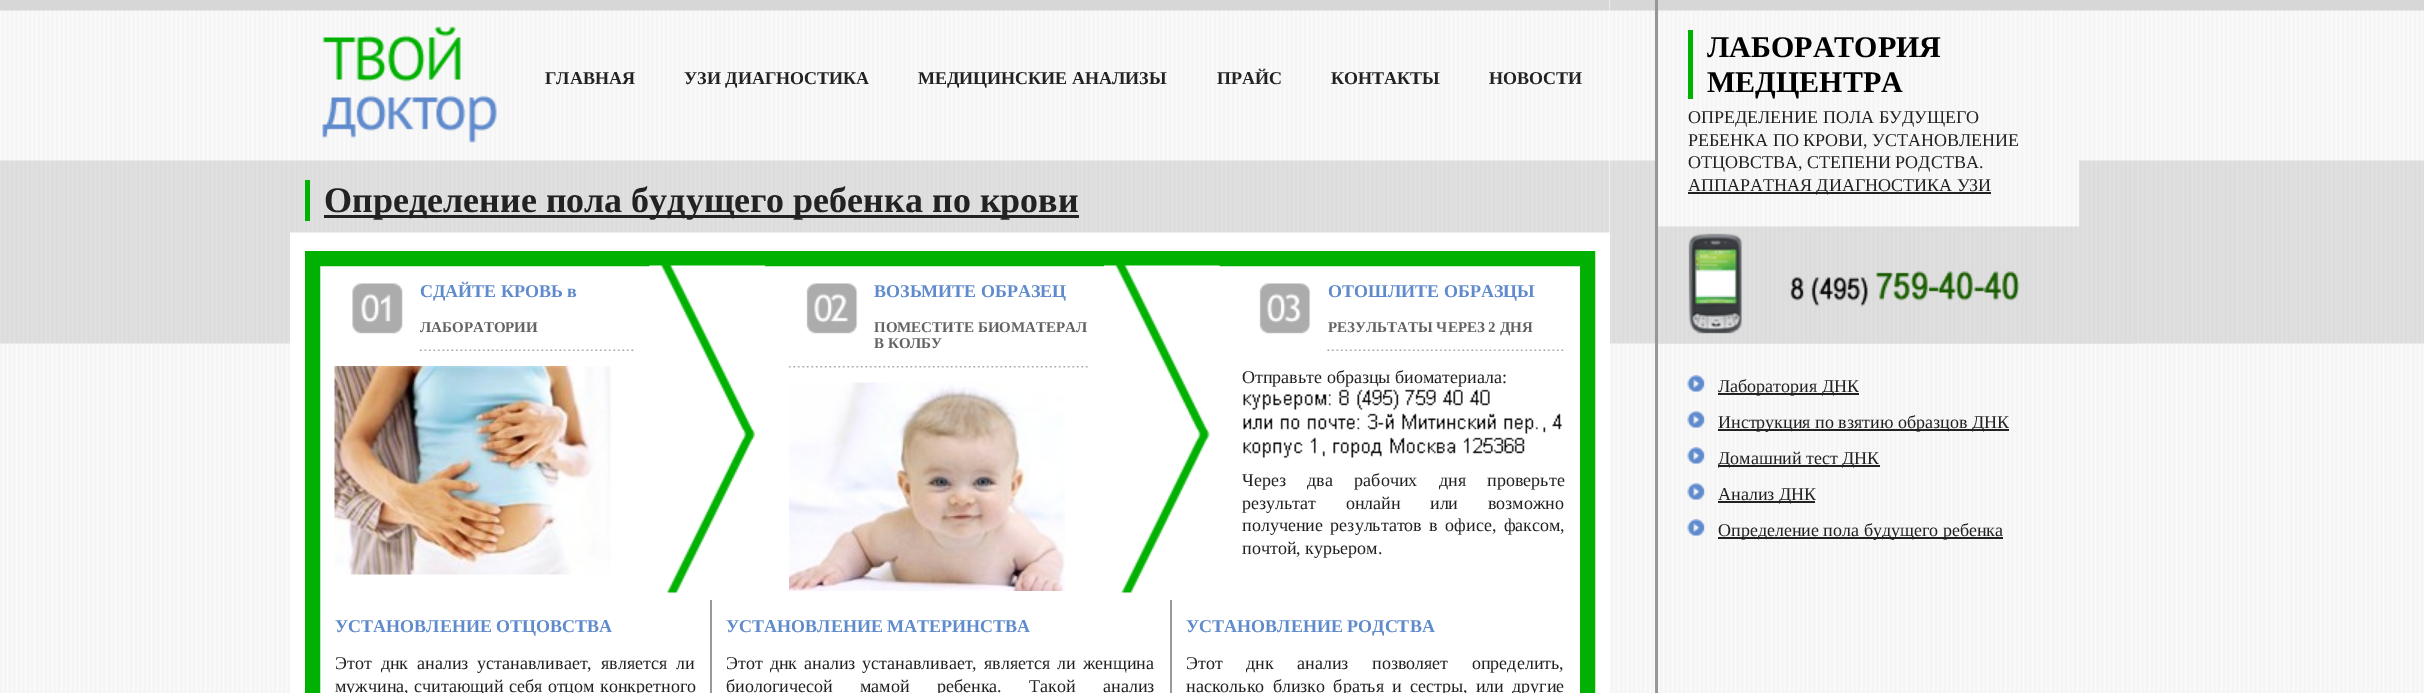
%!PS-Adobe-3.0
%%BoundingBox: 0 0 2424 693
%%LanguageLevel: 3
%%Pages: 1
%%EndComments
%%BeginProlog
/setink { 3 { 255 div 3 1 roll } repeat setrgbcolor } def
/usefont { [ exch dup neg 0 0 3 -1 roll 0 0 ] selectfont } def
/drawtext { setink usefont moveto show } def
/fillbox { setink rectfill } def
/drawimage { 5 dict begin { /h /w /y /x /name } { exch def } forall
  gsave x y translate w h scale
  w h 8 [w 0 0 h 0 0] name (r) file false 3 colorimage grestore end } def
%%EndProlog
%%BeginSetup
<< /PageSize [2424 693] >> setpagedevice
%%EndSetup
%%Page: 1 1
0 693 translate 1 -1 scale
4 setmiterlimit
0 0 2424 693 255 255 255 fillbox
(assets/img1.rgb) 0 343 2424 350 drawimage
(assets/img2.rgb) 0 0 2424 344 drawimage
290 0 1320 693 255 255 255 fillbox
(assets/img3.rgb) 290 0 1320 233 drawimage
(assets/img4.rgb) 322 26 175 117 drawimage
(ГЛАВНАЯ) 545 84 /LiberationSerif-Bold 18 34 34 34 drawtext
(УЗИ ДИАГНОСТИКА) 684 84 /LiberationSerif-Bold 18 34 34 34 drawtext
(МЕДИЦИНСКИЕ АНАЛИЗЫ) 918 84 /LiberationSerif-Bold 18 34 34 34 drawtext
(ПРАЙС) 1217 84 /LiberationSerif-Bold 18 34 34 34 drawtext
(КОНТАКТЫ) 1331 84 /LiberationSerif-Bold 18 34 34 34 drawtext
(НОВОСТИ) 1489 84 /LiberationSerif-Bold 18 34 34 34 drawtext
305 180 5 41 1 177 1 fillbox
324 215 755 3 34 34 34 fillbox
(Определение пола будущего ребенка по крови) 324 212 /LiberationSerif-Bold 36 34 34 34 drawtext
1 177 1 setink
15 setlinewidth
312.5 258.5 1275 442 rectstroke
(assets/img5.rgb) 352 283 51 51 drawimage
(СДАЙТЕ КРОВЬ в) 420 297 /LiberationSerif-Bold 18 95 138 204 drawtext
(ЛАБОРАТОРИИ) 420 332 /LiberationSerif-Bold 15 99 99 99 drawtext
(assets/img6.rgb) 420 349 214 2 drawimage
(assets/img7.rgb) 334 366 277 209 drawimage
(assets/img8.rgb) 649 265 116 328 drawimage
(assets/img9.rgb) 806 283 52 51 drawimage
(ВОЗЬМИТЕ ОБРАЗЕЦ) 874 297 /LiberationSerif-Bold 18 95 138 204 drawtext
(ПОМЕСТИТЕ БИОМАТЕРАЛ) 874 332 /LiberationSerif-Bold 15 99 99 99 drawtext
(В КОЛБУ) 874 348 /LiberationSerif-Bold 15 99 99 99 drawtext
(assets/img10.rgb) 789 366 299 2 drawimage
(assets/img11.rgb) 789 382 276 209 drawimage
(assets/img12.rgb) 1104 265 116 328 drawimage
(assets/img13.rgb) 1259 283 52 51 drawimage
(ОТОШЛИТЕ ОБРАЗЦЫ) 1328 297 /LiberationSerif-Bold 18 95 138 204 drawtext
(РЕЗУЛЬТАТЫ ЧЕРЕЗ 2 ДНЯ) 1328 332 /LiberationSerif-Bold 15 99 99 99 drawtext
(assets/img14.rgb) 1327 349 237 2 drawimage
(Отправьте образцы биоматериала:) 1242 383 /LiberationSerif-Regular 18 34 34 34 drawtext
(assets/img15.rgb) 1243 389 319 69 drawimage
1242 486 moveto 17 0 32 (Через два рабочих дня проверьте) widthshow
1242 509 moveto 25 0 32 (результат онлайн или возможно) widthshow
1242 531 moveto 3 0 32 (получение результатов в офисе, факсом,) widthshow
(почтой, курьером.) 1242 554 /LiberationSerif-Regular 18 34 34 34 drawtext
710 600 2 93 153 153 153 fillbox
(УСТАНОВЛЕНИЕ ОТЦОВСТВА) 335 632 /LiberationSerif-Bold 18 95 138 204 drawtext
/LiberationSerif-Regular 18 usefont
34 34 34 setink
335 669 moveto 4.5 0 32 (Этот днк анализ устанавливает, является ли) widthshow
335 692 moveto 1 0 32 (мужчина, считающий себя отцом конкретного) widthshow
1170 600 2 93 153 153 153 fillbox
(УСТАНОВЛЕНИЕ МАТЕРИНСТВА) 726 632 /LiberationSerif-Bold 18 95 138 204 drawtext
/LiberationSerif-Regular 18 usefont
34 34 34 setink
726 669 moveto 2.5 0 32 (Этот днк анализ устанавливает, является ли женщина) widthshow
726 692 moveto 23 0 32 (биологичесой мамой ребенка. Такой анализ) widthshow
(УСТАНОВЛЕНИЕ РОДСТВА) 1186 632 /LiberationSerif-Bold 18 95 138 204 drawtext
/LiberationSerif-Regular 18 usefont
34 34 34 setink
1186 669 moveto 19 0 32 (Этот днк анализ позволяет определить,) widthshow
1186 692 moveto 3.75 0 32 (насколько близко братья и сестры, или другие) widthshow
(assets/img16.rgb) 1658 11 476 333 drawimage
1655 0 3 693 151 151 151 fillbox
1688 30 5 69 1 177 1 fillbox
(ЛАБОРАТОРИЯ) 1707 57 /LiberationSerif-Bold 30 0 0 0 drawtext
(МЕДЦЕНТРА) 1707 92 /LiberationSerif-Bold 30 0 0 0 drawtext
(ОПРЕДЕЛЕНИЕ ПОЛА БУДУЩЕГО) 1688 123 /LiberationSerif-Regular 18 34 34 34 drawtext
(РЕБЕНКА ПО КРОВИ, УСТАНОВЛЕНИЕ) 1688 146 /LiberationSerif-Regular 18 34 34 34 drawtext
(ОТЦОВСТВА, СТЕПЕНИ РОДСТВА.) 1688 168 /LiberationSerif-Regular 18 34 34 34 drawtext
1688 192 303 2 34 34 34 fillbox
(АППАРАТНАЯ ДИАГНОСТИКА УЗИ) 1688 191 /LiberationSerif-Regular 18 34 34 34 drawtext
(assets/img17.rgb) 1688 233 54 101 drawimage
(assets/img18.rgb) 1790 271 230 36 drawimage
(assets/img19.rgb) 1687 375 18 17 drawimage
1718 393 141 2 34 34 34 fillbox
(Лаборатория ДНК) 1718 392 /LiberationSerif-Regular 18 34 34 34 drawtext
(assets/img19.rgb) 1687 411 18 17 drawimage
1718 429 291 2 34 34 34 fillbox
(Инструкция по взятию образцов ДНК) 1718 428 /LiberationSerif-Regular 18 34 34 34 drawtext
(assets/img19.rgb) 1687 447 18 17 drawimage
1718 465 162 2 34 34 34 fillbox
(Домашний тест ДНК) 1718 464 /LiberationSerif-Regular 18 34 34 34 drawtext
(assets/img19.rgb) 1687 483 18 17 drawimage
1718 501 97 2 34 34 34 fillbox
(Анализ ДНК) 1718 500 /LiberationSerif-Regular 18 34 34 34 drawtext
(assets/img19.rgb) 1687 519 18 17 drawimage
1718 537 285 2 34 34 34 fillbox
(Определение пола будущего ребенка) 1718 536 /LiberationSerif-Regular 18 34 34 34 drawtext
showpage
%%EOF
